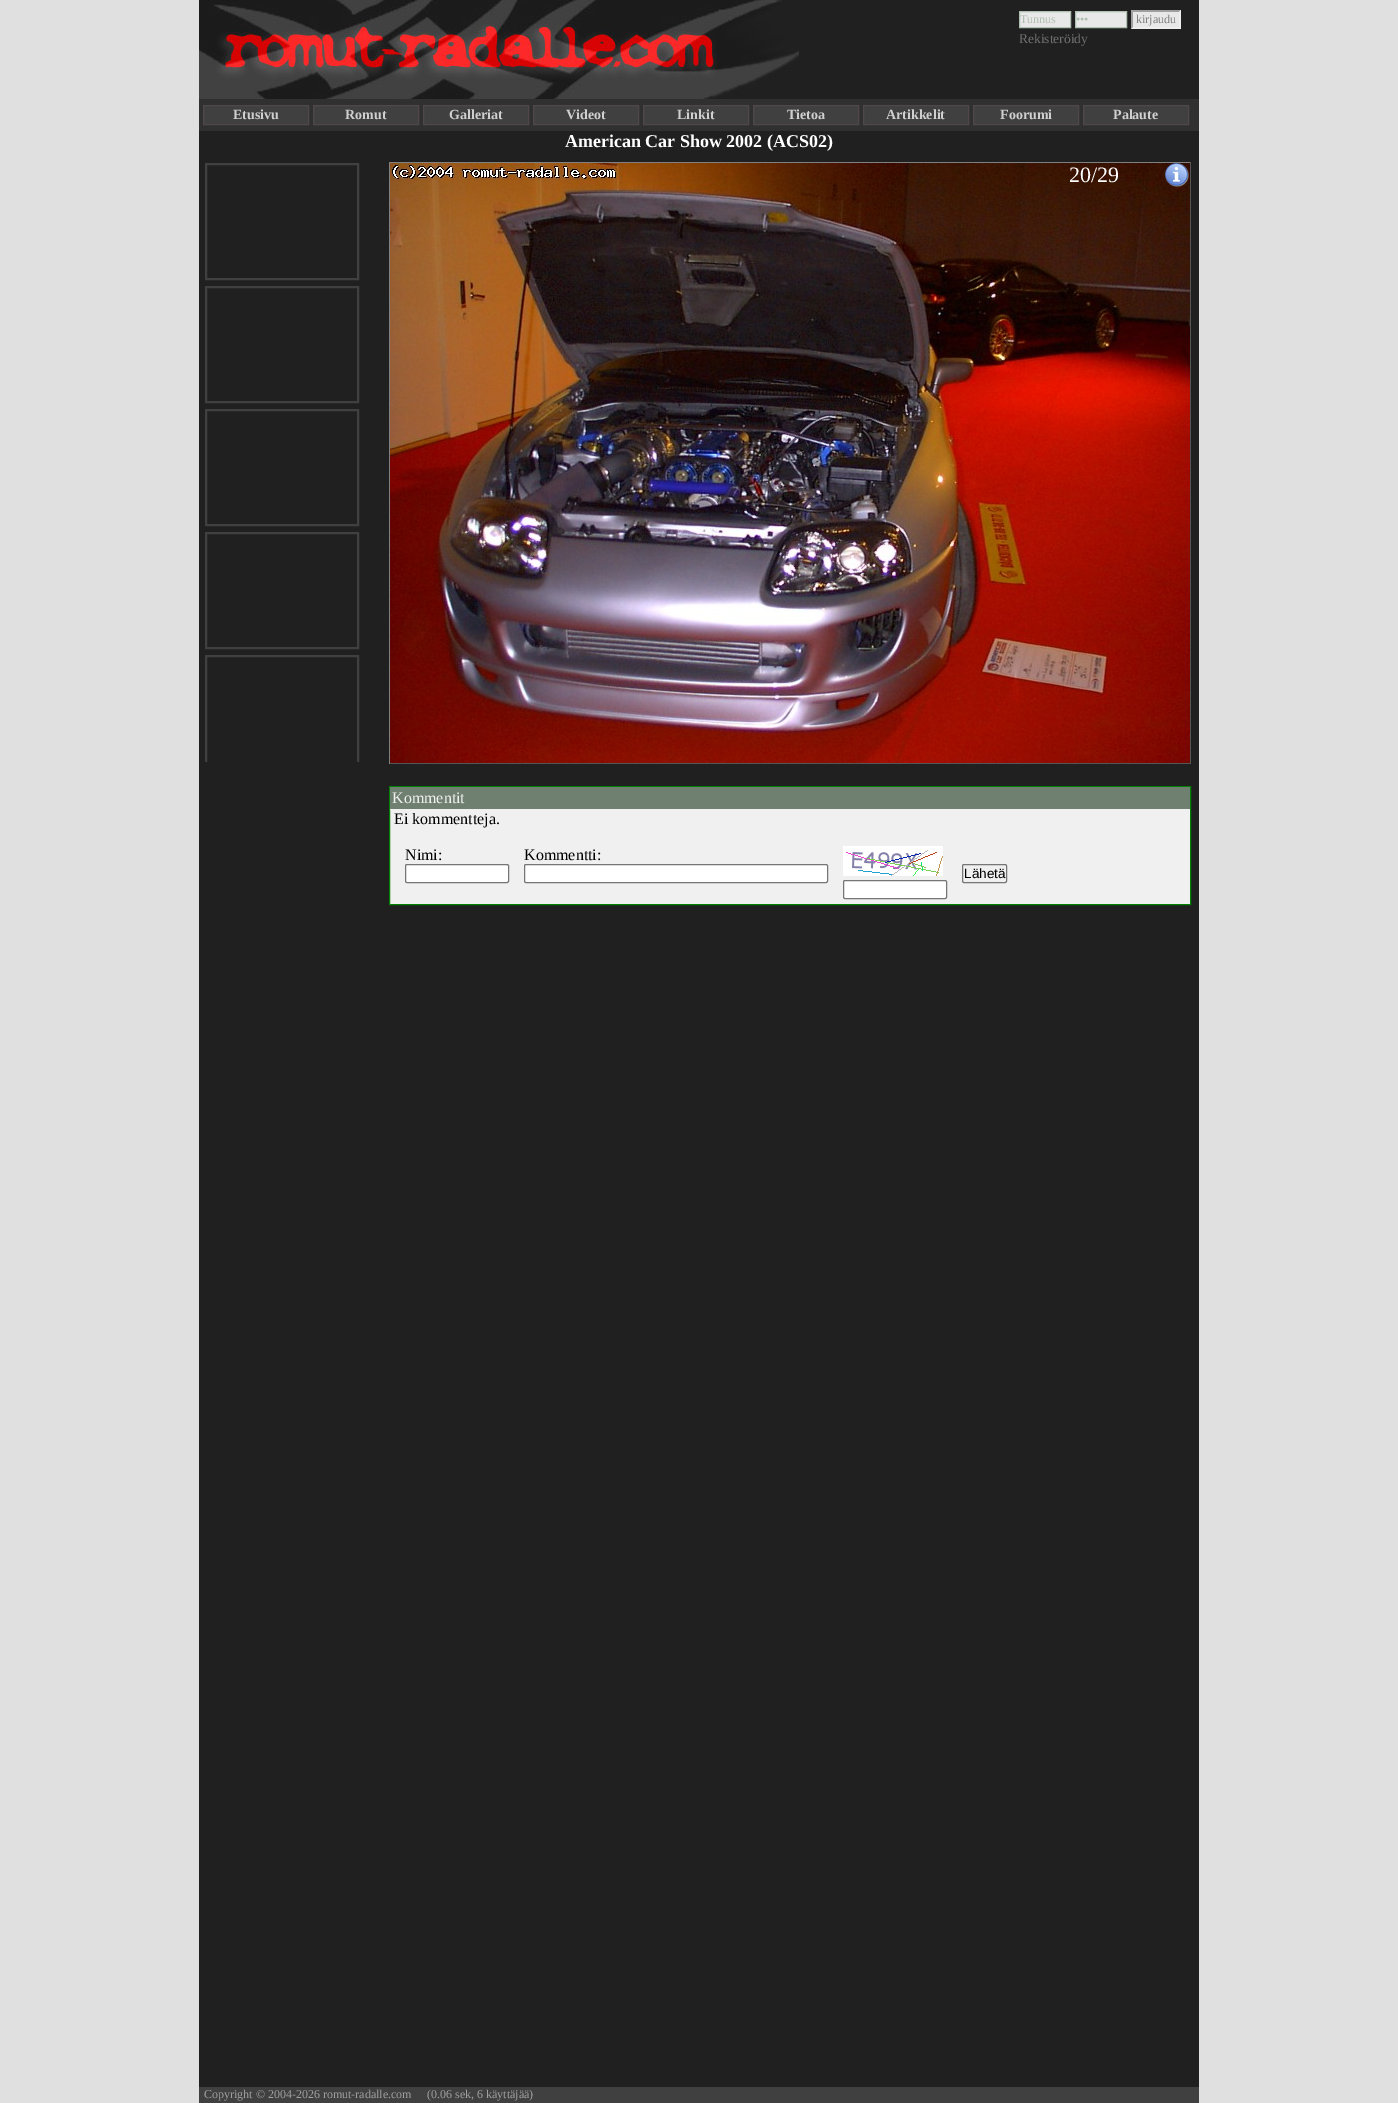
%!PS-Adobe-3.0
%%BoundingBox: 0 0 1398 2103
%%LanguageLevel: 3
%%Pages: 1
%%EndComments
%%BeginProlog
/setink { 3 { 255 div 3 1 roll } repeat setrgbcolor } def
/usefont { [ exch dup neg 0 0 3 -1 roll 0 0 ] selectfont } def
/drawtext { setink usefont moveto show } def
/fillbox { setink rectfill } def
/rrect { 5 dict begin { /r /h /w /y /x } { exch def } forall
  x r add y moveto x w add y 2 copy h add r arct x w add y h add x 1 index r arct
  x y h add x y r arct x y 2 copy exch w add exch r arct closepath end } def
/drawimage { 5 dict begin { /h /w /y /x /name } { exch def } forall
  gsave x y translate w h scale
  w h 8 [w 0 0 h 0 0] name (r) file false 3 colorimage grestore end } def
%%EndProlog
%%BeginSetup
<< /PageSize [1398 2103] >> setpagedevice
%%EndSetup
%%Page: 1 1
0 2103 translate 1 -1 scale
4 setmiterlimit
0 0 1398 2103 224 224 224 fillbox
199 0 1000 2087 32 32 32 fillbox
(assets/img1.rgb) 199 0 600 99 drawimage
232 232 232 setink
1019.5 11.5 moveto 1070.5 11.5 lineto 1070.5 27.5 lineto 1019.5 27.5 lineto closepath gsave fill grestore
176 192 176 setink
stroke
(Tunnus) 1020 23 /LiberationSerif-Regular 12 176 192 176 drawtext
232 232 232 setink
1075.5 11.5 moveto 1126.5 11.5 lineto 1126.5 27.5 lineto 1075.5 27.5 lineto closepath gsave fill grestore
176 192 176 setink
stroke
(•••) 1076 23 /LiberationSerif-Regular 12 176 192 176 drawtext
1131 10 50 19 232 232 232 fillbox
159 159 159 setink
1131 10 moveto 1181 10 lineto 1179 12 lineto 1133 12 lineto closepath fill
238 238 238 setink
1181 10 moveto 1181 29 lineto 1179 27 lineto 1179 12 lineto closepath fill
1181 29 moveto 1131 29 lineto 1133 27 lineto 1179 27 lineto closepath fill
159 159 159 setink
1131 29 moveto 1131 10 lineto 1133 12 lineto 1133 27 lineto closepath fill
(kirjaudu) 1136 23 /LiberationSerif-Regular 12 128 128 128 drawtext
(Rekisteröidy) 1019 43 /LiberationSerif-Regular 13.5 112 112 112 drawtext
199 99 1000 32 48 48 48 fillbox
64 64 64 setink
203.5 105.5 moveto 308.5 105.5 lineto 308.5 124.5 lineto 203.5 124.5 lineto closepath gsave fill grestore
80 72 72 setink
stroke
(Etusivu) 233 119 /LiberationSerif-Bold 14 208 208 208 drawtext
64 64 64 setink
313.5 105.5 moveto 418.5 105.5 lineto 418.5 124.5 lineto 313.5 124.5 lineto closepath gsave fill grestore
80 72 72 setink
stroke
(Romut) 345 119 /LiberationSerif-Bold 14 208 208 208 drawtext
64 64 64 setink
423.5 105.5 moveto 528.5 105.5 lineto 528.5 124.5 lineto 423.5 124.5 lineto closepath gsave fill grestore
80 72 72 setink
stroke
(Galleriat) 449 119 /LiberationSerif-Bold 14 208 208 208 drawtext
64 64 64 setink
533.5 105.5 moveto 638.5 105.5 lineto 638.5 124.5 lineto 533.5 124.5 lineto closepath gsave fill grestore
80 72 72 setink
stroke
(Videot) 566 119 /LiberationSerif-Bold 14 208 208 208 drawtext
64 64 64 setink
643.5 105.5 moveto 748.5 105.5 lineto 748.5 124.5 lineto 643.5 124.5 lineto closepath gsave fill grestore
80 72 72 setink
stroke
(Linkit) 677 119 /LiberationSerif-Bold 14 208 208 208 drawtext
64 64 64 setink
753.5 105.5 moveto 858.5 105.5 lineto 858.5 124.5 lineto 753.5 124.5 lineto closepath gsave fill grestore
80 72 72 setink
stroke
(Tietoa) 787 119 /LiberationSerif-Bold 14 208 208 208 drawtext
64 64 64 setink
863.5 105.5 moveto 968.5 105.5 lineto 968.5 124.5 lineto 863.5 124.5 lineto closepath gsave fill grestore
80 72 72 setink
stroke
(Artikkelit) 886 119 /LiberationSerif-Bold 14 208 208 208 drawtext
64 64 64 setink
973.5 105.5 moveto 1078.5 105.5 lineto 1078.5 124.5 lineto 973.5 124.5 lineto closepath gsave fill grestore
80 72 72 setink
stroke
(Foorumi) 1000 119 /LiberationSerif-Bold 14 208 208 208 drawtext
64 64 64 setink
1083.5 105.5 moveto 1188.5 105.5 lineto 1188.5 124.5 lineto 1083.5 124.5 lineto closepath gsave fill grestore
80 72 72 setink
stroke
(Palaute) 1113 119 /LiberationSerif-Bold 14 208 208 208 drawtext
(American Car Show 2002 \(ACS02\)) 565 147 /LiberationSerif-Bold 18 255 255 255 drawtext
64 64 64 setink
2 setlinewidth
206 164 152 115 rectstroke
206 287 152 115 rectstroke
206 410 152 115 rectstroke
206 533 152 115 rectstroke
gsave
204 162 176 600 rectclip
206 656 152 115 rectstroke
grestore
(assets/img3.rgb) 390 163 800 600 drawimage
(20/29) 1069 182 /LiberationSerif-Regular 22 255 255 255 drawtext
(assets/img2.rgb) 1165 163 24 24 drawimage
389 162 802 1 128 128 128 fillbox
1190 162 1 602 85 85 85 fillbox
389 763 802 1 85 85 85 fillbox
389 162 1 602 128 128 128 fillbox
390 810 800 94 240 240 240 fillbox
0 128 0 setink
1 setlinewidth
389.5 786.5 801 118 rectstroke
390 787 800 22 112 128 112 fillbox
390 809 800 1 240 240 240 fillbox
(Kommentit) 392 803 /LiberationSerif-Regular 16 240 240 240 drawtext
(Ei kommentteja.) 394 824 /LiberationSerif-Regular 16 0 0 0 drawtext
(Nimi:) 405 860 /LiberationSerif-Regular 16 0 0 0 drawtext
255 255 255 setink
405.5 864.5 103 18 1.5 rrect gsave fill grestore
118 118 118 setink
stroke
(Kommentti:) 524 860 /LiberationSerif-Regular 16 0 0 0 drawtext
255 255 255 setink
524.5 864.5 303 18 1.5 rrect gsave fill grestore
118 118 118 setink
stroke
(assets/img4.rgb) 843 846 100 30 drawimage
255 255 255 setink
843.5 880.5 103 18 1.5 rrect gsave fill grestore
118 118 118 setink
stroke
962.5 864.5 44 18 1.5 rrect stroke
(Lähetä) 964 878 /LiberationSans-Regular 13.5 0 0 0 drawtext
199 2087 1000 16 64 64 64 fillbox
(Copyright © 2004-2026 romut-radalle.com) 204 2098 /LiberationSerif-Regular 12 160 160 160 drawtext
(\(0.06 sek, 6 käyttäjää\)) 427 2098 /LiberationSerif-Regular 12 160 160 160 drawtext
showpage
%%EOF
